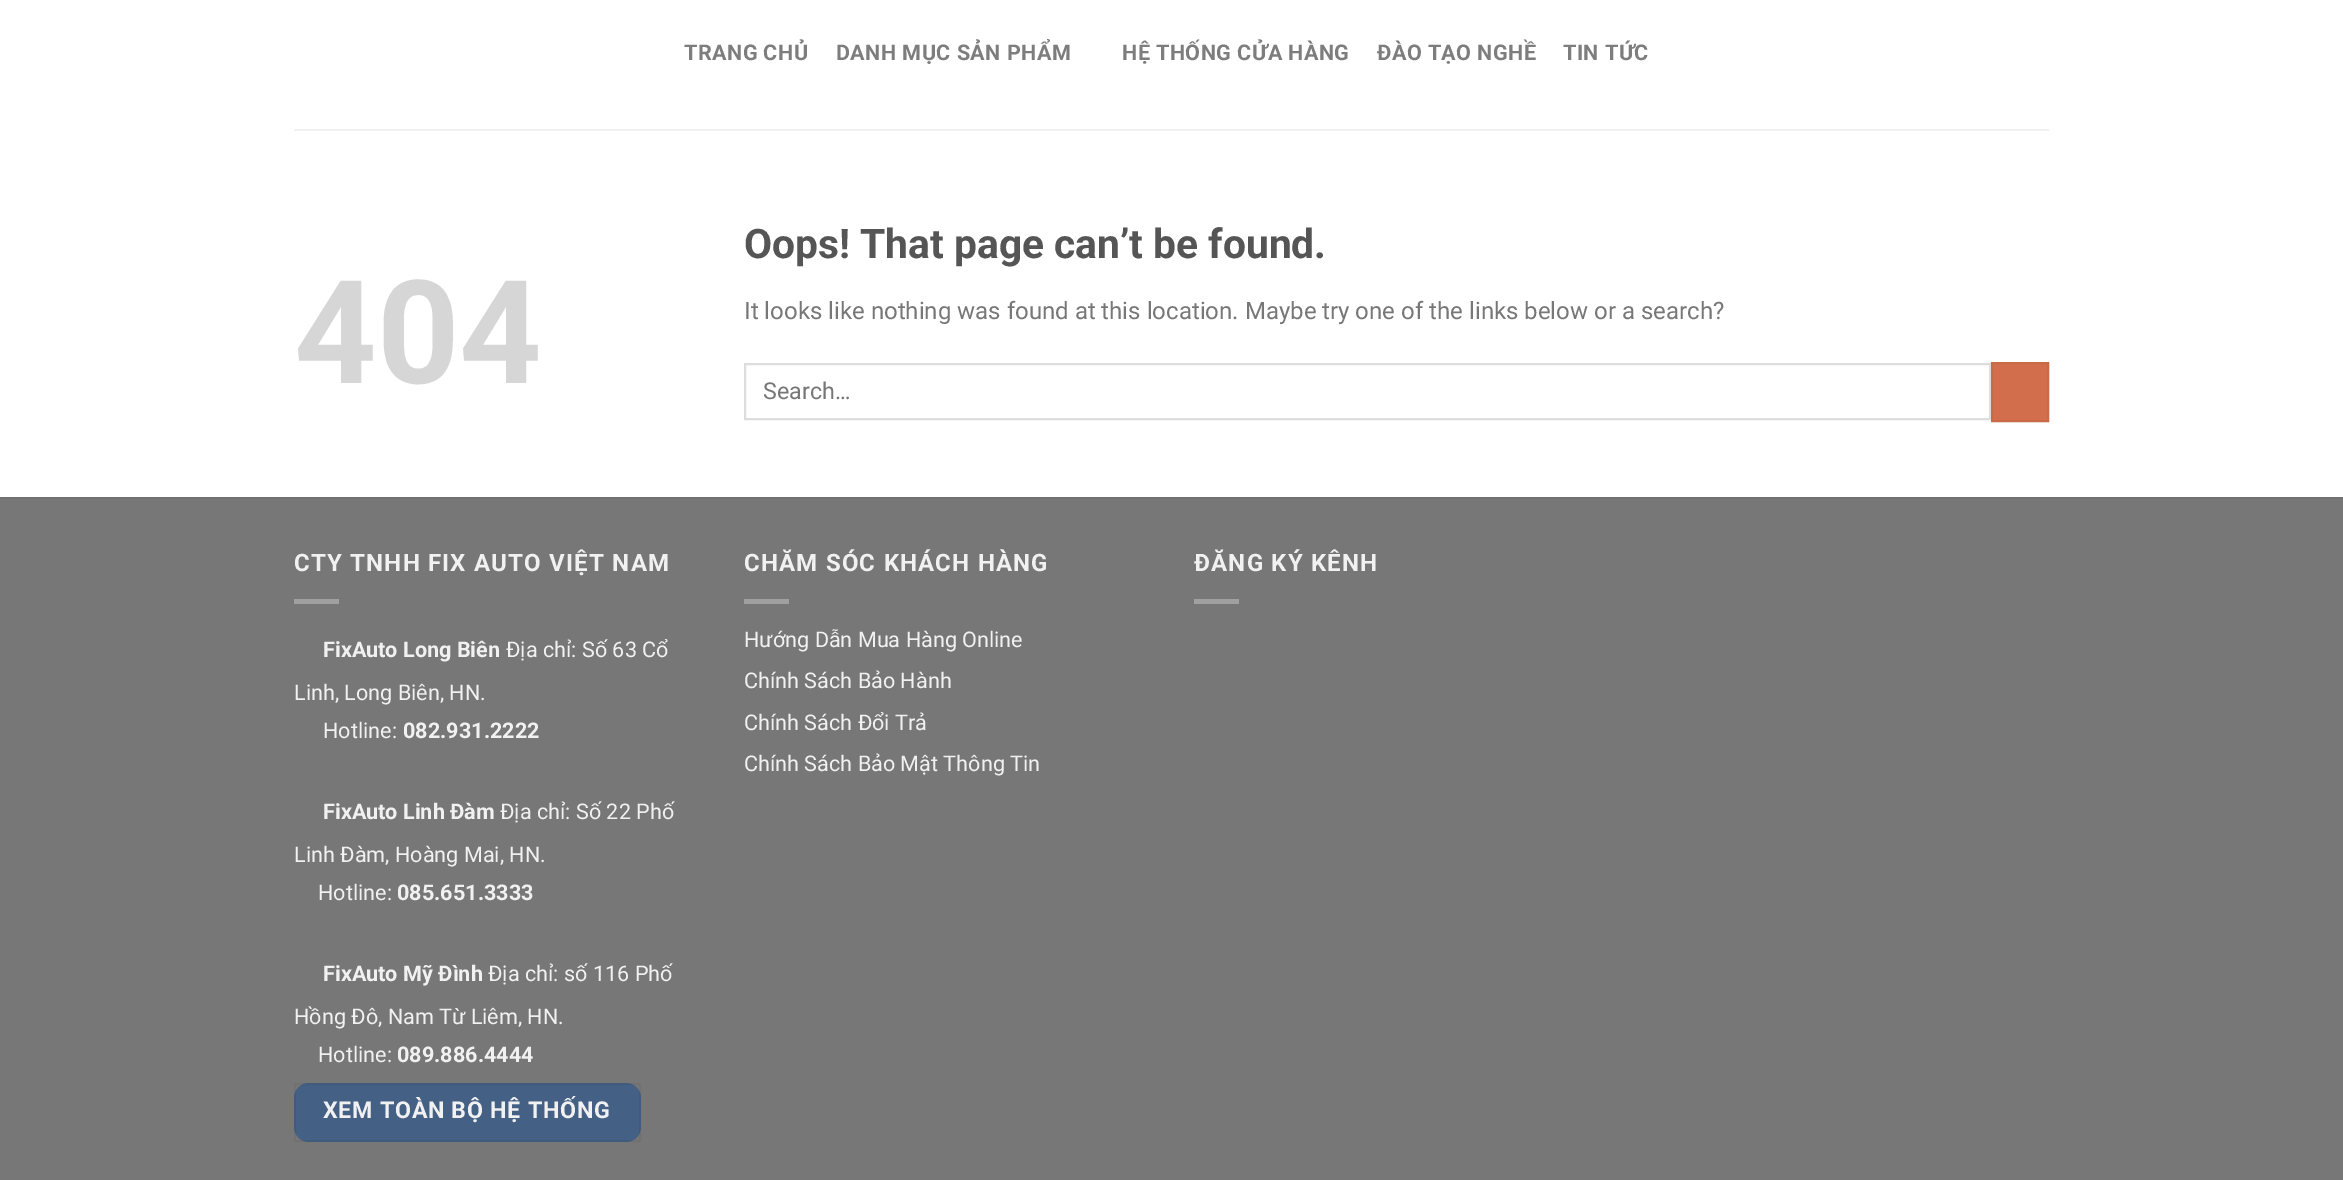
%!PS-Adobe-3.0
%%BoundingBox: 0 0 2343 1180
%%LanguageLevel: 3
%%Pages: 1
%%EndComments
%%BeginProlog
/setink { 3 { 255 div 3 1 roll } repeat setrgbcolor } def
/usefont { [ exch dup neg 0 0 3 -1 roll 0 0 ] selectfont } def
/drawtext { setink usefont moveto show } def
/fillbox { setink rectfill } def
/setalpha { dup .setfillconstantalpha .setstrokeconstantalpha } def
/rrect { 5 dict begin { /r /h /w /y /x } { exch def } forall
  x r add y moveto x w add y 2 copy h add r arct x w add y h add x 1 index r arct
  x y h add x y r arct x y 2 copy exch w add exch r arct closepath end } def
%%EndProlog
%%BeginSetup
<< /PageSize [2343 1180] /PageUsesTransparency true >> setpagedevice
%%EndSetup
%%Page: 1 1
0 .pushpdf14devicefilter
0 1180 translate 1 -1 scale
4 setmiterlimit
0 0 2343 1180 255 255 255 fillbox
/Roboto-Bold 21.6 usefont
125 125 125 setink
684 60 moveto 0.4 0 (TRANG CHỦ) ashow
836 60 moveto 0.4 0 (DANH MỤC SẢN PHẨM) ashow
1122 60 moveto 0.4 0 (HỆ THỐNG CỬA HÀNG) ashow
1377 60 moveto 0.4 0 (ĐÀO TẠO NGHỀ) ashow
1563 60 moveto 0.4 0 (TIN TỨC) ashow
294 129 1755 2 241 241 241 fillbox
(404) 294 383 /Roboto-Bold 144 214 214 214 drawtext
(Oops! That page can’t be found.) 744 258 /Roboto-Bold 40.75 85 85 85 drawtext
(It looks like nothing was found at this location. Maybe try one of the links below or a search?) 744 319 /Roboto-Regular 24 119 119 119 drawtext
221 221 221 setink
2 setlinewidth
745 364 1245 55 rectstroke
(Search…) 763 399 /Roboto-Regular 23.25 119 119 119 drawtext
210 110 75 setink
1992 363 moveto 2048 363 lineto 2048 421 lineto 1992 421 lineto closepath gsave fill grestore
200 105 71 setink
stroke
0 499 2343 681 119 119 119 fillbox
0 497 2343 2 113 113 113 fillbox
/Roboto-Bold 24 usefont
241 241 241 setink
294 571 moveto 1.2 0 (CTY TNHH FIX AUTO VIỆT NAM) ashow
294 599 45 5 160 160 160 fillbox
(FixAuto Long Biên) 323 657 /Roboto-Bold 21.6 241 241 241 drawtext
(Địa chỉ: Số 63 Cổ) 506 657 /Roboto-Regular 21.6 241 241 241 drawtext
(Linh, Long Biên, HN.) 294 700 /Roboto-Regular 21.6 241 241 241 drawtext
(Hotline:) 323 738 /Roboto-Regular 21.6 241 241 241 drawtext
(082.931.2222) 403 738 /Roboto-Bold 21.6 241 241 241 drawtext
(FixAuto Linh Đàm) 323 819 /Roboto-Bold 21.6 241 241 241 drawtext
(Địa chỉ: Số 22 Phố) 500 819 /Roboto-Regular 21.6 241 241 241 drawtext
(Linh Đàm, Hoàng Mai, HN.) 294 862 /Roboto-Regular 21.6 241 241 241 drawtext
(Hotline:) 318 900 /Roboto-Regular 21.6 241 241 241 drawtext
(085.651.3333) 397 900 /Roboto-Bold 21.6 241 241 241 drawtext
(FixAuto Mỹ Đình) 323 981 /Roboto-Bold 21.6 241 241 241 drawtext
(Địa chỉ: số 116 Phố) 488 981 /Roboto-Regular 21.6 241 241 241 drawtext
(Hồng Đô, Nam Từ Liêm, HN.) 294 1024 /Roboto-Regular 21.6 241 241 241 drawtext
(Hotline:) 318 1062 /Roboto-Regular 21.6 241 241 241 drawtext
(089.886.4444) 397 1062 /Roboto-Bold 21.6 241 241 241 drawtext
68 96 132 setink
294 1083 347 59 15 rrect fill
0.05 setalpha
0 0 0 setink
295 1084 345 57 rectstroke
/Roboto-Bold 23.25 usefont
1 setalpha
241 241 241 setink
323 1118 moveto 0.7 0 (XEM TOÀN BỘ HỆ THỐNG) ashow
/Roboto-Bold 24 usefont
744 571 moveto 1.2 0 (CHĂM SÓC KHÁCH HÀNG) ashow
744 599 45 5 160 160 160 fillbox
(Hướng Dẫn Mua Hàng Online) 744 647 /Roboto-Regular 21.6 241 241 241 drawtext
(Chính Sách Bảo Hành) 744 688 /Roboto-Regular 21.6 241 241 241 drawtext
(Chính Sách Đổi Trả) 744 730 /Roboto-Regular 21.6 241 241 241 drawtext
(Chính Sách Bảo Mật Thông Tin) 744 771 /Roboto-Regular 21.6 241 241 241 drawtext
/Roboto-Bold 24 usefont
1194 571 moveto 1.2 0 (ĐĂNG KÝ KÊNH) ashow
1194 599 45 5 160 160 160 fillbox
.poppdf14devicefilter showpage
%%EOF
